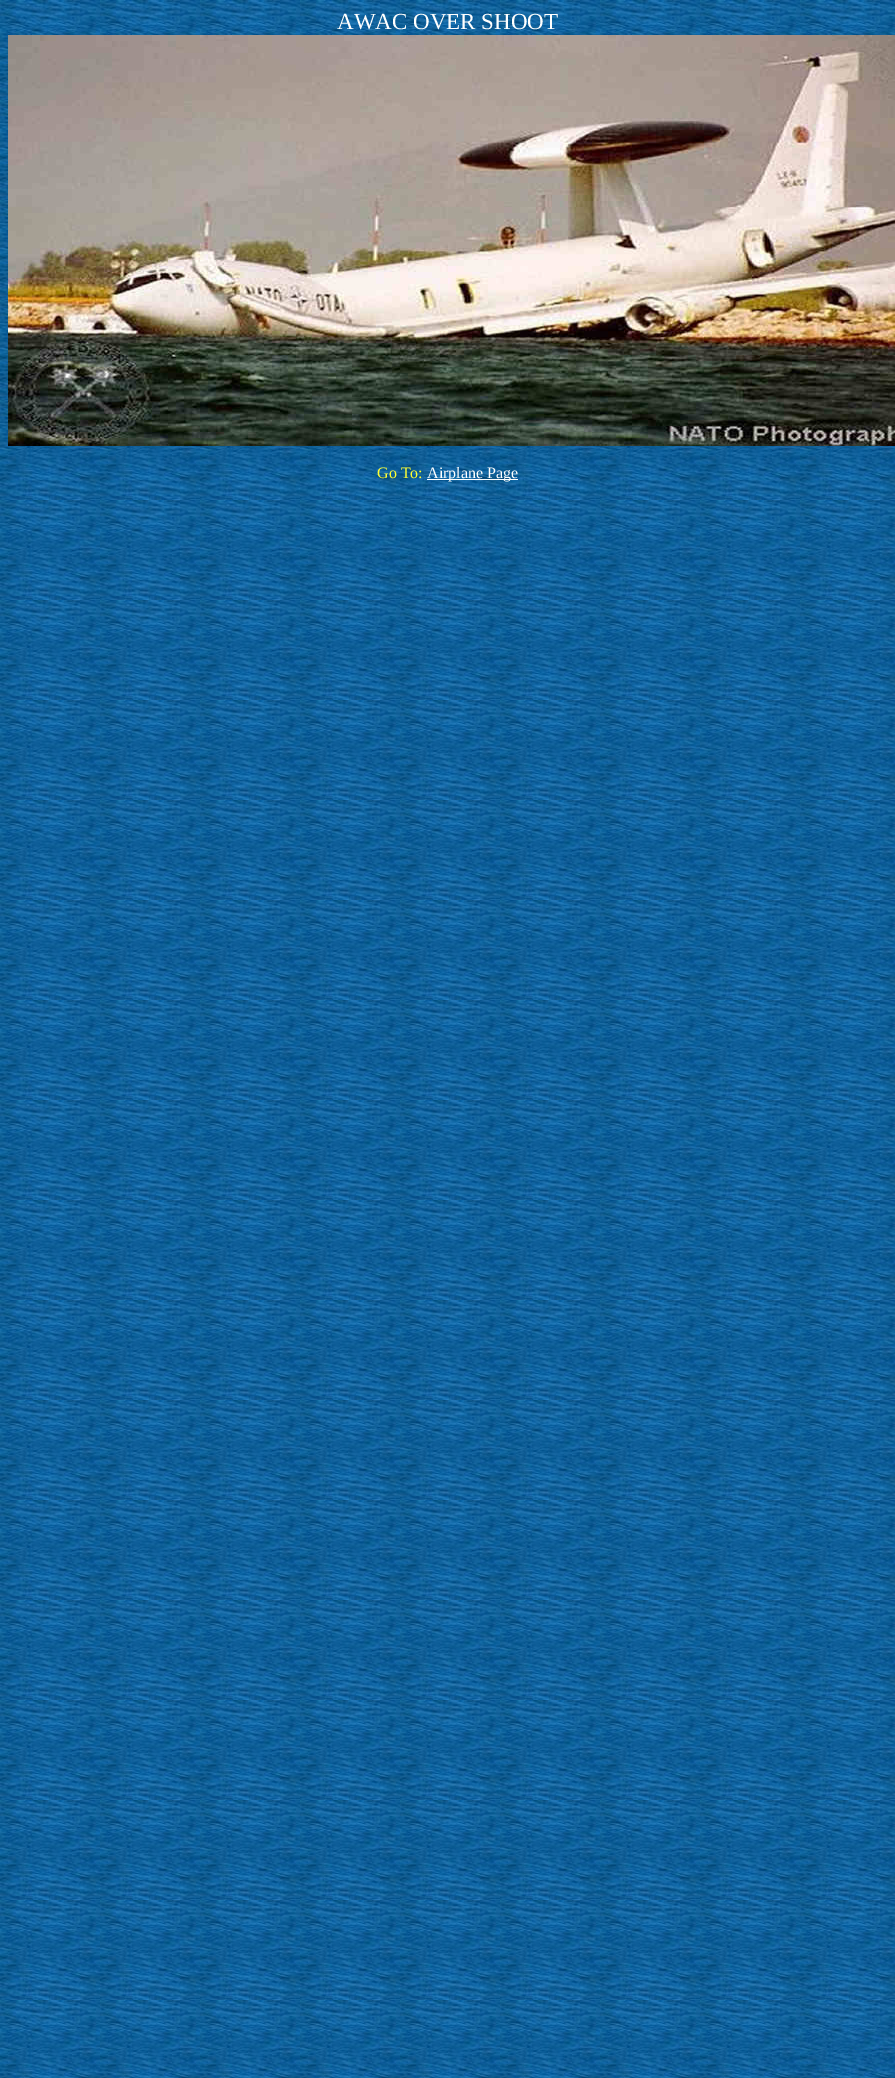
%!PS-Adobe-3.0
%%BoundingBox: 0 0 895 2078
%%LanguageLevel: 3
%%Pages: 1
%%EndComments
%%BeginProlog
/setink { 3 { 255 div 3 1 roll } repeat setrgbcolor } def
/usefont { [ exch dup neg 0 0 3 -1 roll 0 0 ] selectfont } def
/drawtext { setink usefont moveto show } def
/fillbox { setink rectfill } def
/drawimage { 5 dict begin { /h /w /y /x /name } { exch def } forall
  gsave x y translate w h scale
  w h 8 [w 0 0 h 0 0] name (r) file false 3 colorimage grestore end } def
%%EndProlog
%%BeginSetup
<< /PageSize [895 2078] >> setpagedevice
%%EndSetup
%%Page: 1 1
0 2078 translate 1 -1 scale
4 setmiterlimit
0 0 895 2078 255 255 255 fillbox
(assets/img1.rgb) 0 0 895 2078 drawimage
(AWAC OVER SHOOT) 337 29 /LiberationSerif-Regular 23 255 255 255 drawtext
(assets/img2.rgb) 8 35 887 411 drawimage
(Go To:) 377 478 /LiberationSerif-Regular 16 255 255 51 drawtext
427 479 91 1 255 255 255 fillbox
(Airplane Page) 427 478 /LiberationSerif-Regular 16 255 255 255 drawtext
showpage
%%EOF
